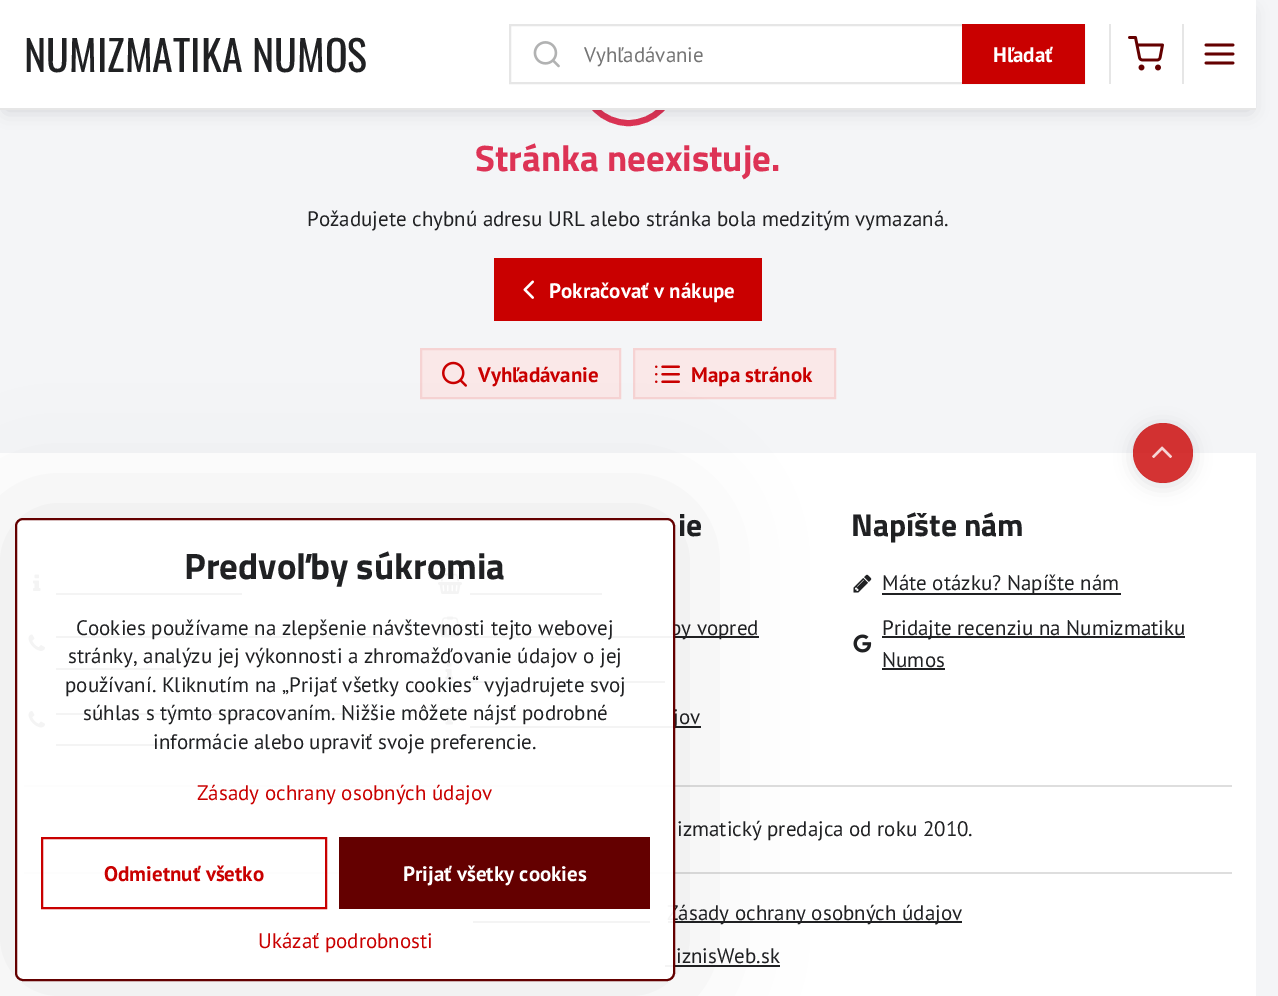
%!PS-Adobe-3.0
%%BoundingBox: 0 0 1278 996
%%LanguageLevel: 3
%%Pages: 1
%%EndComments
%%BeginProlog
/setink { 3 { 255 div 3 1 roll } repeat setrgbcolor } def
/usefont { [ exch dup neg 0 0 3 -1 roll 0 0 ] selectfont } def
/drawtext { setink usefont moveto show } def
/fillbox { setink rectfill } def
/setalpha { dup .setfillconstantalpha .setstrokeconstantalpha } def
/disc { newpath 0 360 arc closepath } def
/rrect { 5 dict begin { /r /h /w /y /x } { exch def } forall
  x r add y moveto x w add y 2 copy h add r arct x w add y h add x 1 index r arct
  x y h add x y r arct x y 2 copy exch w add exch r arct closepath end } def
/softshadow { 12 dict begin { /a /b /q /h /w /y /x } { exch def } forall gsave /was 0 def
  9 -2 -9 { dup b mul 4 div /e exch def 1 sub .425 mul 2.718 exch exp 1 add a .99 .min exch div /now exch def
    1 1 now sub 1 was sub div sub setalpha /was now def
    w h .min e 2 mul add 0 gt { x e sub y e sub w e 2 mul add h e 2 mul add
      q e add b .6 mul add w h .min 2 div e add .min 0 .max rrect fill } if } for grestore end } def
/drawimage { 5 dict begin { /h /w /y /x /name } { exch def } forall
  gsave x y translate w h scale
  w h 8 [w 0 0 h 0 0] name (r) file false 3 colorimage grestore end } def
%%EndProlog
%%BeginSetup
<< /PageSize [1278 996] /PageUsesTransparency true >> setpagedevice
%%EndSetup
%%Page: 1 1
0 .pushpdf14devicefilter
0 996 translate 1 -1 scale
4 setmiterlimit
0 0 1278 996 244 245 247 fillbox
221 51 85 setink
6 setlinewidth
628.5 76.5 46.5 disc stroke
0 0 20 setink
6 12 1244 98 0 9 0.15 softshadow
0 0 1256 108 255 255 255 fillbox
0 108 1256 2 230 230 230 fillbox
(NUMIZMATIKA NUMOS) 24 72 /Oswald-Regular 42 32 33 35 drawtext
230 230 230 setink
2 setlinewidth
510 25 574 58 rectstroke
(assets/img1.rgb) 533 41 27 27 drawimage
(Vyhľadávanie) 584 62 /PTSans-Regular 21 117 117 117 drawtext
962 24 123 60 201 0 0 fillbox
(Hľadať) 993 62 /PTSans-Bold 21 255 255 255 drawtext
1109 24 2 60 230 230 230 fillbox
(assets/img2.rgb) 1128 36 36 35 drawimage
1182 24 2 60 230 230 230 fillbox
(assets/img3.rgb) 1204 43 31 22 drawimage
(Stránka neexistuje.) 475 171 /TitilliumWeb-Bold 36.75 221 51 85 drawtext
(Požadujete chybnú adresu URL alebo stránka bola medzitým vymazaná.) 307 226 /PTSans-Regular 21 32 33 35 drawtext
494 258 268 63 201 0 0 fillbox
(assets/img4.rgb) 523 280 11 19 drawimage
(Pokračovať v nákupe) 549 298 /PTSans-Bold 21 255 255 255 drawtext
250 232 232 setink
421 349 moveto 620 349 lineto 620 398 lineto 421 398 lineto closepath gsave fill grestore
246 211 211 setink
stroke
(assets/img5.rgb) 442 361 25 26 drawimage
(Vyhľadávanie) 478 382 /PTSans-Bold 21 201 0 0 drawtext
250 232 232 setink
634 349 moveto 835 349 lineto 835 398 lineto 634 398 lineto closepath gsave fill grestore
246 211 211 setink
stroke
(assets/img6.rgb) 655 365 25 18 drawimage
(Mapa stránok) 691 382 /PTSans-Bold 21 201 0 0 drawtext
0 453 1256 543 255 255 255 fillbox
gsave
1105 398 moveto 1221 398 lineto 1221 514 lineto 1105 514 lineto closepath 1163 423 moveto 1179.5 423 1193 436.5 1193 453 curveto 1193 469.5 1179.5 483 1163 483 curveto 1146.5 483 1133 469.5 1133 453 curveto 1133 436.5 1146.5 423 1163 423 curveto closepath eoclip newpath
0 0 20 setink
1133 426 60 60 30 9 0.12 softshadow
grestore
0.8 setalpha
201 0 0 setink
1163 453 30 disc fill
1 setalpha
(assets/img7.rgb) 1152 446 20 12 drawimage
(assets/img8.rgb) 33 574 8 17 drawimage
56 593 186 2 32 33 35 fillbox
(assets/img9.rgb) 28 634 17 17 drawimage
56 636 325 2 32 33 35 fillbox
56 668 120 2 32 33 35 fillbox
(assets/img10.rgb) 28 711 17 17 drawimage
56 713 322 2 32 33 35 fillbox
56 744 120 2 32 33 35 fillbox
(ie) 678 536 /TitilliumWeb-Bold 31.5 32 33 35 drawtext
(assets/img11.rgb) 438 573 24 21 drawimage
470 593 132 2 32 33 35 fillbox
(assets/img12.rgb) 438 616 24 22 drawimage
470 636 289 2 32 33 35 fillbox
(by vopred) 670 635 /PTSans-Regular 21 32 33 35 drawtext
(assets/img13.rgb) 445 663 8 17 drawimage
470 681 195 2 32 33 35 fillbox
(assets/img13.rgb) 445 708 8 17 drawimage
470 726 231 2 32 33 35 fillbox
(jov) 673 724 /PTSans-Regular 21 32 33 35 drawtext
(Napíšte nám) 851 536 /TitilliumWeb-Bold 31.5 32 33 35 drawtext
(assets/img14.rgb) 853 574 19 19 drawimage
882 593 239 2 32 33 35 fillbox
(Máte otázku? Napíšte nám) 882 590 /PTSans-Regular 21 32 33 35 drawtext
(assets/img15.rgb) 853 634 19 19 drawimage
882 636 303 2 32 33 35 fillbox
(Pridajte recenziu na Numizmatiku) 882 635 /PTSans-Regular 21 32 33 35 drawtext
(Numos) 882 667 /PTSans-Regular 21 32 33 35 drawtext
882 668 63 2 32 33 35 fillbox
24 785 1208 2 222 222 222 fillbox
(izmatický predajca od roku 2010.) 677 836 /PTSans-Regular 21 32 33 35 drawtext
24 872 1208 2 222 222 222 fillbox
473 921 177 2 32 33 35 fillbox
668 921 294 2 32 33 35 fillbox
(Zásady ochrany osobných údajov) 667 920 /PTSans-Regular 21 32 33 35 drawtext
(iznisWeb.sk) 676 963 /PTSans-Regular 21 32 33 35 drawtext
665 965 115 2 32 33 35 fillbox
gsave
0 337 moveto 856 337 lineto 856 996 lineto 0 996 lineto closepath 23 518 moveto 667 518 lineto 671.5 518 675 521.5 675 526 curveto 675 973 lineto 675 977.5 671.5 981 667 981 curveto 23 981 lineto 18.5 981 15 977.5 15 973 curveto 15 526 lineto 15 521.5 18.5 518 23 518 curveto closepath eoclip newpath
0 0 0 setink
15 518 660 463 8 60 0.1 softshadow
grestore
0.95 setalpha
255 255 255 setink
16 519 658 461 7 rrect fill
1 setalpha
100 0 0 setink
16 519 658 461 7 rrect stroke
(Predvoľby súkromia) 184 579 /TitilliumWeb-Bold 36.75 32 33 35 drawtext
(Cookies používame na zlepšenie návštevnosti tejto webovej) 76 635 /PTSans-Regular 21 32 33 35 drawtext
(stránky, analýzu jej výkonnosti a zhromažďovanie údajov o jej) 68 663 /PTSans-Regular 21 32 33 35 drawtext
(používaní. Kliknutím na „Prijať všetky cookies“ vyjadrujete svoj) 65 692 /PTSans-Regular 21 32 33 35 drawtext
(súhlas s týmto spracovaním. Nižšie môžete nájsť podrobné) 83 720 /PTSans-Regular 21 32 33 35 drawtext
(informácie alebo upraviť svoje preferencie.) 153 749 /PTSans-Regular 21 32 33 35 drawtext
(Zásady ochrany osobných údajov) 197 800 /PTSans-Regular 21 201 0 0 drawtext
42 838 284 70 rectstroke
(Odmietnuť všetko) 104 881 /PTSans-Bold 21 201 0 0 drawtext
339 837 311 72 100 0 0 fillbox
(Prijať všetky cookies) 403 881 /PTSans-Bold 21 255 255 255 drawtext
(Ukázať podrobnosti) 258 948 /PTSans-Regular 21 201 0 0 drawtext
.poppdf14devicefilter showpage
%%EOF
